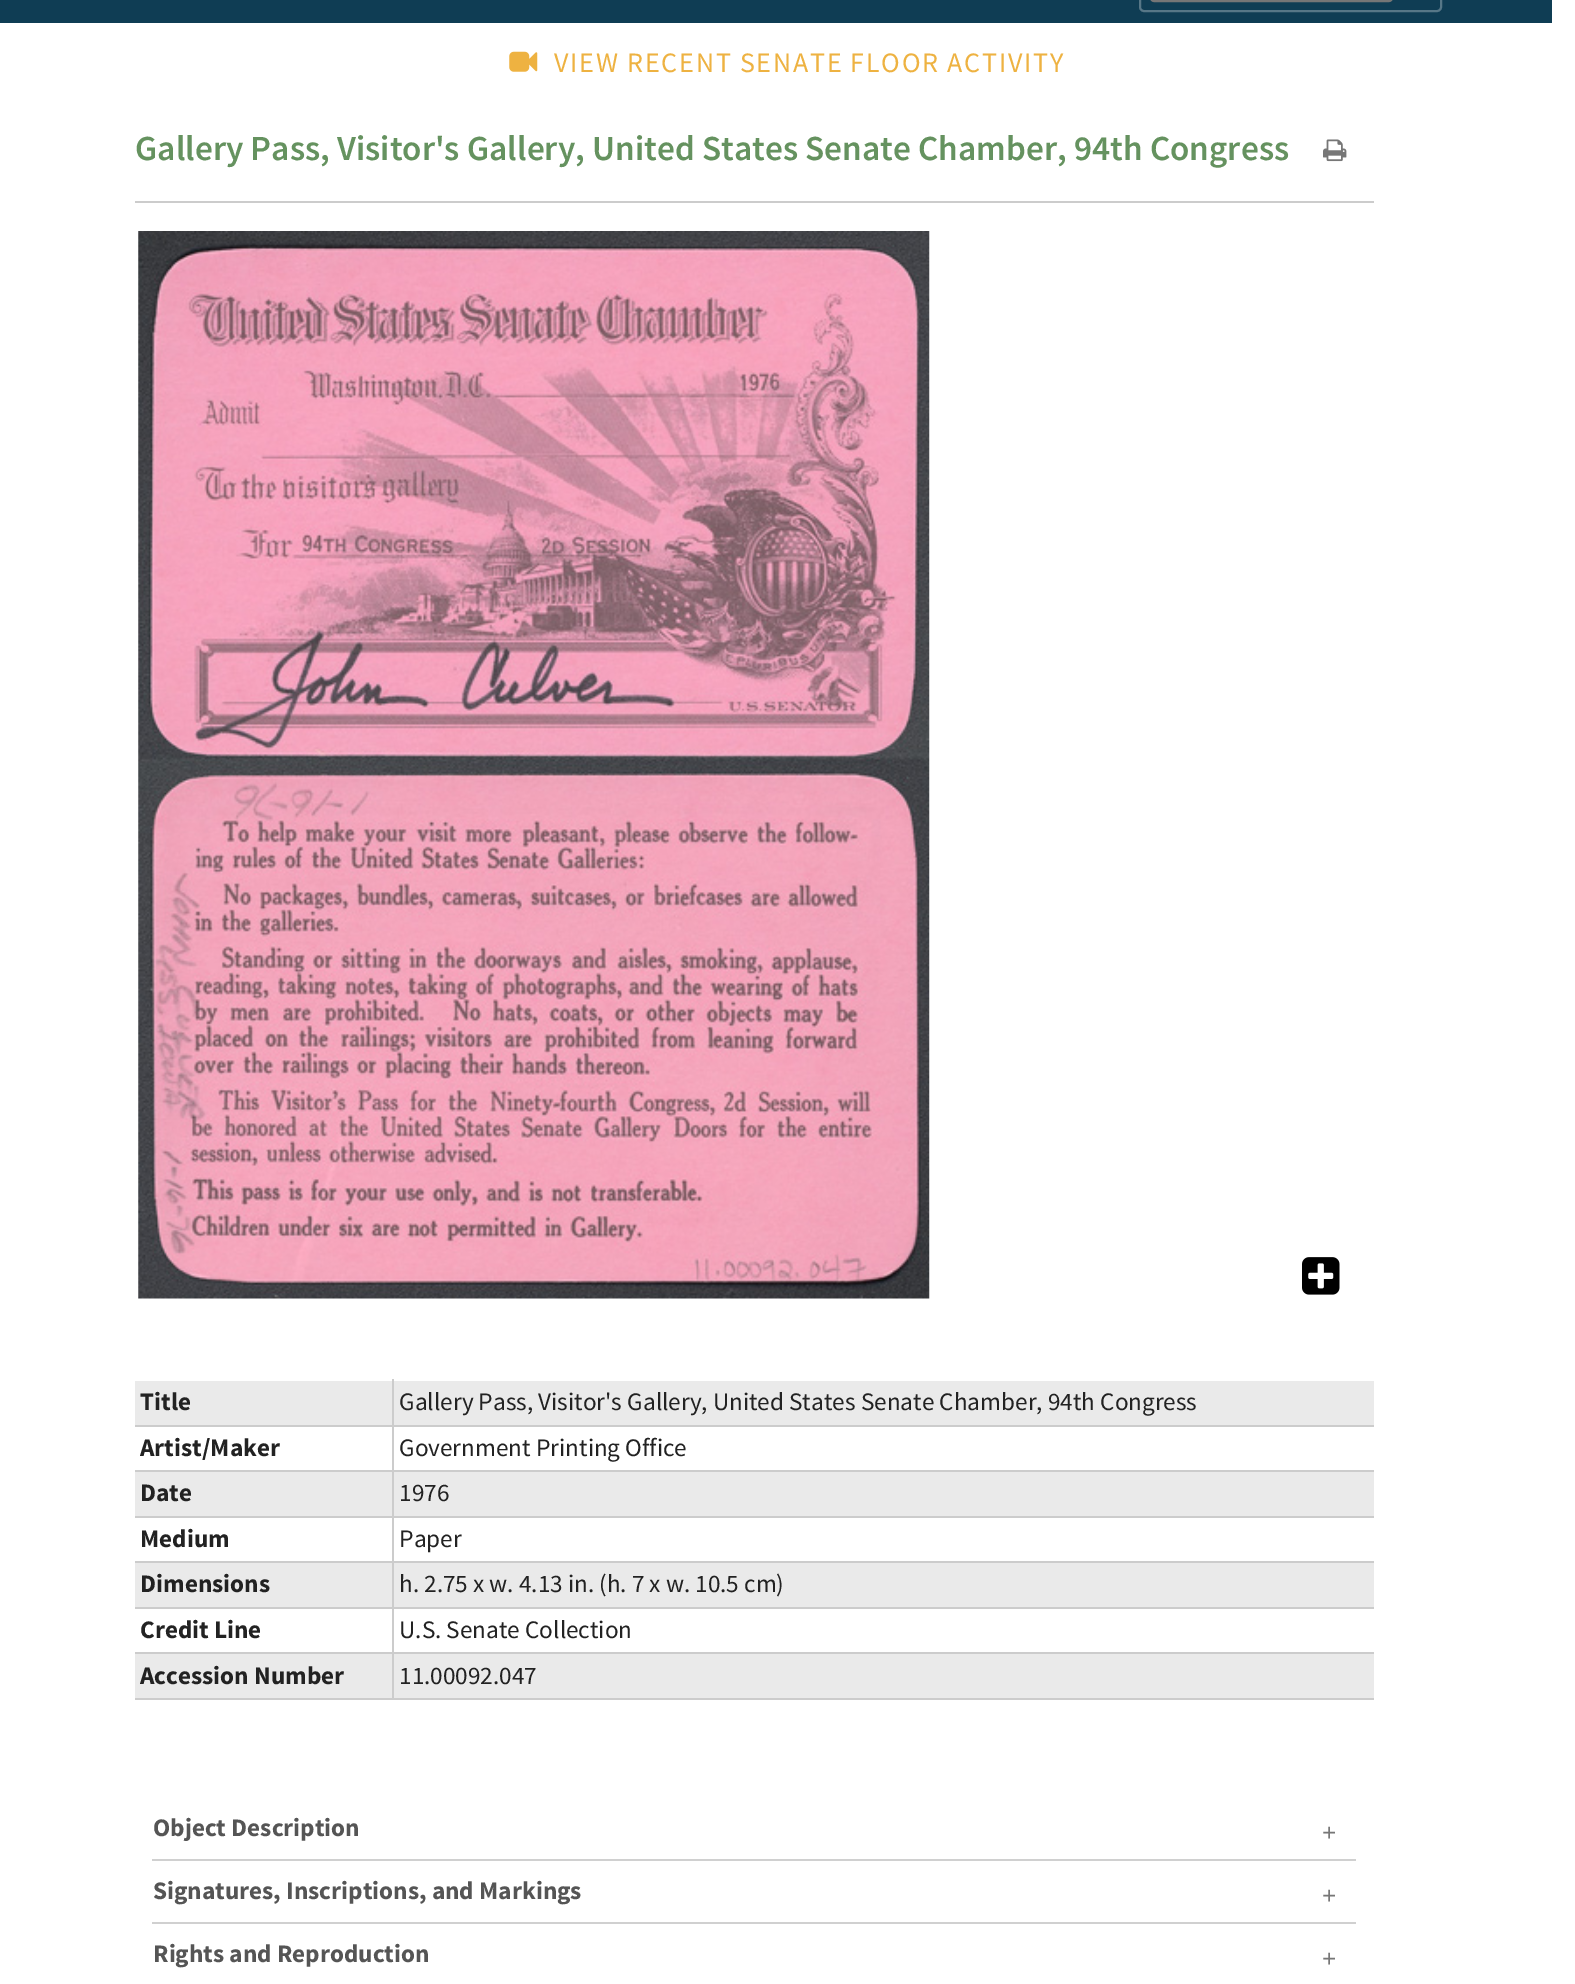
%!PS-Adobe-3.0
%%BoundingBox: 0 0 1575 1984
%%LanguageLevel: 3
%%Pages: 1
%%EndComments
%%BeginProlog
/setink { 3 { 255 div 3 1 roll } repeat setrgbcolor } def
/usefont { [ exch dup neg 0 0 3 -1 roll 0 0 ] selectfont } def
/drawtext { setink usefont moveto show } def
/fillbox { setink rectfill } def
/rrect { 5 dict begin { /r /h /w /y /x } { exch def } forall
  x r add y moveto x w add y 2 copy h add r arct x w add y h add x 1 index r arct
  x y h add x y r arct x y 2 copy exch w add exch r arct closepath end } def
/drawimage { 5 dict begin { /h /w /y /x /name } { exch def } forall
  gsave x y translate w h scale
  w h 8 [w 0 0 h 0 0] name (r) file false 3 colorimage grestore end } def
%%EndProlog
%%BeginSetup
<< /PageSize [1575 1984] >> setpagedevice
%%EndSetup
%%Page: 1 1
0 1984 translate 1 -1 scale
4 setmiterlimit
0 0 1575 1984 255 255 255 fillbox
0 0 1552 23 15 61 84 fillbox
87 119 135 setink
2 setlinewidth
1140 -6 301 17 4 rrect stroke
118 118 118 setink
1151 -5 241 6 3 rrect stroke
(assets/img1.rgb) 509 51 29 21 drawimage
/SourceSansPro-Regular 28 usefont
238 178 65 setink
554 72 moveto 1.75 0 (VIEW RECENT SENATE FLOOR ACTIVITY) ashow
(Gallery Pass, Visitor's Gallery, United States Senate Chamber, 94th Congress) 135 160 /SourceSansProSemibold-SemiBold 35.25 101 146 95 drawtext
(assets/img2.rgb) 1323 139 24 23 drawimage
135 201 1239 2 204 204 204 fillbox
(assets/img3.rgb) 138 231 792 1068 drawimage
(assets/img4.rgb) 1302 1257 38 38 drawimage
135 1381 1239 44 234 234 234 fillbox
135 1472 1239 44 234 234 234 fillbox
135 1563 1239 44 234 234 234 fillbox
135 1654 1239 44 234 234 234 fillbox
392 1698 982 2 204 204 204 fillbox
392 1652 2 47 204 204 204 fillbox
392 1652 982 2 204 204 204 fillbox
392 1607 2 47 204 204 204 fillbox
392 1607 982 2 204 204 204 fillbox
392 1561 2 47 204 204 204 fillbox
392 1561 982 2 204 204 204 fillbox
392 1516 2 47 204 204 204 fillbox
392 1516 982 2 204 204 204 fillbox
392 1470 2 47 204 204 204 fillbox
392 1470 982 2 204 204 204 fillbox
392 1425 2 47 204 204 204 fillbox
392 1425 982 2 204 204 204 fillbox
392 1379 2 47 204 204 204 fillbox
135 1425 259 2 204 204 204 fillbox
(Title) 140 1410 /SourceSansPro-Bold 25.2 34 34 34 drawtext
(Gallery Pass, Visitor's Gallery, United States Senate Chamber, 94th Congress) 399 1410 /SourceSansPro-Regular 25.2 34 34 34 drawtext
135 1470 259 2 204 204 204 fillbox
(Artist/Maker) 140 1456 /SourceSansPro-Bold 25.2 34 34 34 drawtext
(Government Printing Office) 399 1456 /SourceSansPro-Regular 25.2 34 34 34 drawtext
135 1516 259 2 204 204 204 fillbox
(Date) 140 1501 /SourceSansPro-Bold 25.2 34 34 34 drawtext
(1976) 399 1501 /SourceSansPro-Regular 25.2 34 34 34 drawtext
135 1561 259 2 204 204 204 fillbox
(Medium) 140 1547 /SourceSansPro-Bold 25.2 34 34 34 drawtext
(Paper) 399 1547 /SourceSansPro-Regular 25.2 34 34 34 drawtext
135 1607 259 2 204 204 204 fillbox
(Dimensions) 140 1592 /SourceSansPro-Bold 25.2 34 34 34 drawtext
(h. 2.75 x w. 4.13 in. \(h. 7 x w. 10.5 cm\)) 399 1592 /SourceSansPro-Regular 25.2 34 34 34 drawtext
135 1652 259 2 204 204 204 fillbox
(Credit Line) 140 1638 /SourceSansPro-Bold 25.2 34 34 34 drawtext
(U.S. Senate Collection) 399 1638 /SourceSansPro-Regular 25.2 34 34 34 drawtext
135 1698 259 2 204 204 204 fillbox
(Accession Number) 140 1684 /SourceSansPro-Bold 25.2 34 34 34 drawtext
(11.00092.047) 399 1684 /SourceSansPro-Regular 25.2 34 34 34 drawtext
152 1859 1204 2 208 208 208 fillbox
(Object Description) 153 1836 /SourceSansPro-Bold 25.2 85 85 85 drawtext
(+) 1322 1841 /LiberationSerif-Bold 25.2 119 119 119 drawtext
152 1922 1204 2 208 208 208 fillbox
(Signatures, Inscriptions, and Markings) 153 1899 /SourceSansPro-Bold 25.2 85 85 85 drawtext
(+) 1322 1904 /LiberationSerif-Bold 25.2 119 119 119 drawtext
(Rights and Reproduction) 153 1962 /SourceSansPro-Bold 25.2 85 85 85 drawtext
(+) 1322 1967 /LiberationSerif-Bold 25.2 119 119 119 drawtext
showpage
%%EOF
